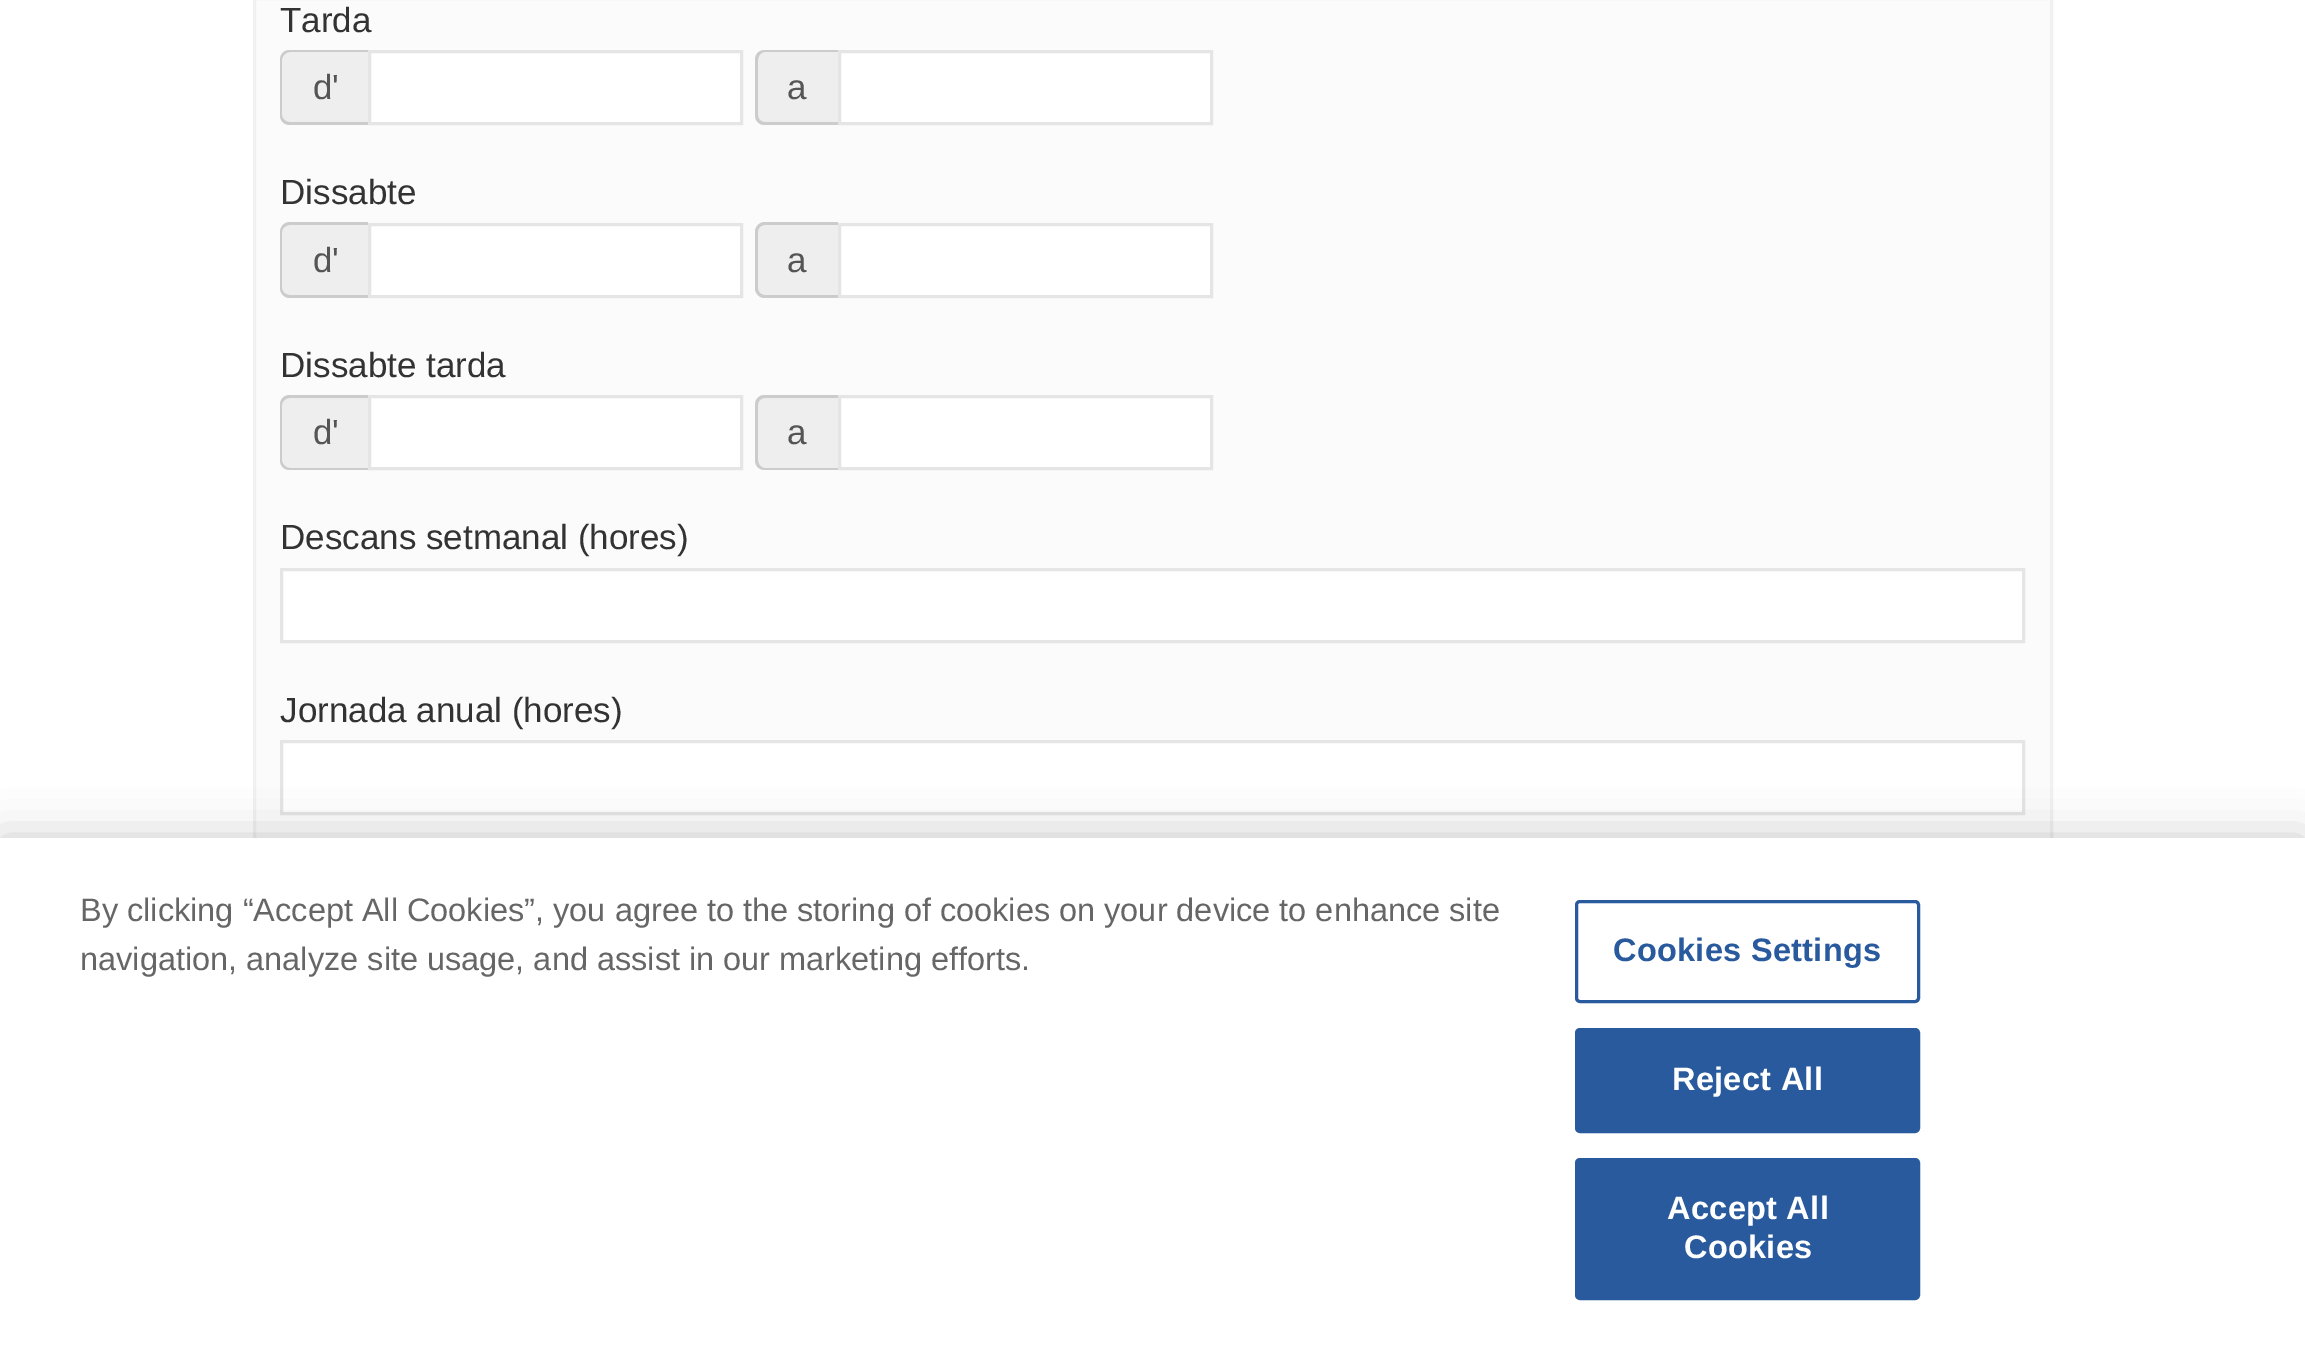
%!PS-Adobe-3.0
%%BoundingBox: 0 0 2305 1348
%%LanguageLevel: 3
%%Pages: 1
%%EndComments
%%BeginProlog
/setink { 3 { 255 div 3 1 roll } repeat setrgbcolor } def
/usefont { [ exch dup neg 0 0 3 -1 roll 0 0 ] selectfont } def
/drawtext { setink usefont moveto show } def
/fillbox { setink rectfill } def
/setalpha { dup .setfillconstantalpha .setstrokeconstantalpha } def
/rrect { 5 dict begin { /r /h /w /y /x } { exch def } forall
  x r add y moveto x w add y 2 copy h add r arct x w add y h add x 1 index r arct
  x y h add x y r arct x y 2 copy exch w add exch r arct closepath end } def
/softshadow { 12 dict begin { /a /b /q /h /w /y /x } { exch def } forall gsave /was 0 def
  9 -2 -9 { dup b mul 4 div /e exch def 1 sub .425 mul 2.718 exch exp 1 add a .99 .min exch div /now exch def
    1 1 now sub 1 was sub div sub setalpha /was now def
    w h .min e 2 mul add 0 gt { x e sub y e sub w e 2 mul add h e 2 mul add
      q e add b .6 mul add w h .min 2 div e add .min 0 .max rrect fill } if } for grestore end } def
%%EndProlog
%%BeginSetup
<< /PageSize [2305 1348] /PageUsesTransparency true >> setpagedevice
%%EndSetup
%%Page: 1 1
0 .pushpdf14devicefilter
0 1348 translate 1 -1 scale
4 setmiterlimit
0 0 2305 1348 255 255 255 fillbox
256 0 1794 838 251 251 251 fillbox
241 241 241 setink
3 setlinewidth
254.5 -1.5 1797 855 rectstroke
(Tarda) 280 32 /LiberationSans-Regular 35 51 51 51 drawtext
238 238 238 setink
290 50 moveto 368 50 lineto 368 125 lineto 290 125 lineto 284.5 125 280 120.5 280 115 curveto 280 60 lineto 280 54.5 284.5 50 290 50 curveto closepath fill
204 204 204 setink
290 50 moveto 368 50 lineto 368 125 lineto 290 125 lineto 284 125 280 121 280 115 curveto 280 60 lineto 280 54 284 50 290 50 curveto closepath 290 52 moveto 368 52 lineto 368 122 lineto 290 122 lineto 286 122 282 119 282 115 curveto 282 60 lineto 282 56 286 52 290 52 curveto closepath eofill
(d') 313 99 /LiberationSans-Regular 35 85 85 85 drawtext
255 255 255 setink
369.5 51.5 moveto 741.5 51.5 lineto 741.5 123.5 lineto 369.5 123.5 lineto closepath gsave fill grestore
229 229 229 setink
stroke
238 238 238 setink
765 50 moveto 838 50 lineto 838 125 lineto 765 125 lineto 759.5 125 755 120.5 755 115 curveto 755 60 lineto 755 54.5 759.5 50 765 50 curveto closepath fill
204 204 204 setink
765 50 moveto 838 50 lineto 838 125 lineto 765 125 lineto 759 125 755 121 755 115 curveto 755 60 lineto 755 54 759 50 765 50 curveto closepath 765 52 moveto 838 52 lineto 838 122 lineto 765 122 lineto 761 122 758 119 758 115 curveto 758 60 lineto 758 56 761 52 765 52 curveto closepath eofill
(a) 787 99 /LiberationSans-Regular 35 85 85 85 drawtext
255 255 255 setink
839.5 51.5 moveto 1211.5 51.5 lineto 1211.5 123.5 lineto 839.5 123.5 lineto closepath gsave fill grestore
229 229 229 setink
stroke
(Dissabte) 280 204 /LiberationSans-Regular 35 51 51 51 drawtext
238 238 238 setink
290 223 moveto 368 223 lineto 368 298 lineto 290 298 lineto 284.5 298 280 293.5 280 288 curveto 280 233 lineto 280 227.5 284.5 223 290 223 curveto closepath fill
204 204 204 setink
290 222 moveto 368 222 lineto 368 298 lineto 290 298 lineto 284 298 280 293 280 288 curveto 280 232 lineto 280 227 284 222 290 222 curveto closepath 290 225 moveto 368 225 lineto 368 295 lineto 290 295 lineto 286 295 282 292 282 288 curveto 282 232 lineto 282 228 286 225 290 225 curveto closepath eofill
(d') 313 272 /LiberationSans-Regular 35 85 85 85 drawtext
255 255 255 setink
369.5 224.5 moveto 741.5 224.5 lineto 741.5 296.5 lineto 369.5 296.5 lineto closepath gsave fill grestore
229 229 229 setink
stroke
238 238 238 setink
765 223 moveto 838 223 lineto 838 298 lineto 765 298 lineto 759.5 298 755 293.5 755 288 curveto 755 233 lineto 755 227.5 759.5 223 765 223 curveto closepath fill
204 204 204 setink
765 222 moveto 838 222 lineto 838 298 lineto 765 298 lineto 759 298 755 293 755 288 curveto 755 232 lineto 755 227 759 222 765 222 curveto closepath 765 225 moveto 838 225 lineto 838 295 lineto 765 295 lineto 761 295 758 292 758 288 curveto 758 232 lineto 758 228 761 225 765 225 curveto closepath eofill
(a) 787 272 /LiberationSans-Regular 35 85 85 85 drawtext
255 255 255 setink
839.5 224.5 moveto 1211.5 224.5 lineto 1211.5 296.5 lineto 839.5 296.5 lineto closepath gsave fill grestore
229 229 229 setink
stroke
(Dissabte tarda) 280 377 /LiberationSans-Regular 35 51 51 51 drawtext
238 238 238 setink
290 395 moveto 368 395 lineto 368 470 lineto 290 470 lineto 284.5 470 280 465.5 280 460 curveto 280 405 lineto 280 399.5 284.5 395 290 395 curveto closepath fill
204 204 204 setink
290 395 moveto 368 395 lineto 368 470 lineto 290 470 lineto 284 470 280 466 280 460 curveto 280 405 lineto 280 399 284 395 290 395 curveto closepath 290 398 moveto 368 398 lineto 368 468 lineto 290 468 lineto 286 468 282 464 282 460 curveto 282 405 lineto 282 401 286 398 290 398 curveto closepath eofill
(d') 313 444 /LiberationSans-Regular 35 85 85 85 drawtext
255 255 255 setink
369.5 396.5 moveto 741.5 396.5 lineto 741.5 468.5 lineto 369.5 468.5 lineto closepath gsave fill grestore
229 229 229 setink
stroke
238 238 238 setink
765 395 moveto 838 395 lineto 838 470 lineto 765 470 lineto 759.5 470 755 465.5 755 460 curveto 755 405 lineto 755 399.5 759.5 395 765 395 curveto closepath fill
204 204 204 setink
765 395 moveto 838 395 lineto 838 470 lineto 765 470 lineto 759 470 755 466 755 460 curveto 755 405 lineto 755 399 759 395 765 395 curveto closepath 765 398 moveto 838 398 lineto 838 468 lineto 765 468 lineto 761 468 758 464 758 460 curveto 758 405 lineto 758 401 761 398 765 398 curveto closepath eofill
(a) 787 444 /LiberationSans-Regular 35 85 85 85 drawtext
255 255 255 setink
839.5 396.5 moveto 1211.5 396.5 lineto 1211.5 468.5 lineto 839.5 468.5 lineto closepath gsave fill grestore
229 229 229 setink
stroke
(Descans setmanal \(hores\)) 280 549 /LiberationSans-Regular 35 51 51 51 drawtext
255 255 255 setink
281.5 569.5 moveto 2023.5 569.5 lineto 2023.5 641.5 lineto 281.5 641.5 lineto closepath gsave fill grestore
229 229 229 setink
stroke
(Jornada anual \(hores\)) 280 722 /LiberationSans-Regular 35 51 51 51 drawtext
255 255 255 setink
281.5 741.5 moveto 2023.5 741.5 lineto 2023.5 813.5 lineto 281.5 813.5 lineto closepath gsave fill grestore
229 229 229 setink
stroke
0 0 0 setink
0 838 2305 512 0 22.5 0.2 softshadow
0 838 2305 510 255 255 255 fillbox
(By clicking “Accept All Cookies”, you agree to the storing of cookies on your device to enhance site) 80 921 /LiberationSans-Regular 32.5 102 102 102 drawtext
(navigation, analyze site usage, and assist in our marketing efforts.) 80 970 /LiberationSans-Regular 32.5 102 102 102 drawtext
41 90 157 setink
1576.5 901.5 342 100 3.5 rrect stroke
/LiberationSans-Bold 32.5 usefont
1613 961 moveto 0.3 0 (Cookies Settings) ashow
1576.5 1029.5 342 102 3.5 rrect gsave fill grestore
stroke
255 255 255 setink
1672 1090 moveto 0.3 0 (Reject All) ashow
41 90 157 setink
1576.5 1159.5 342 139 3.5 rrect gsave fill grestore
stroke
255 255 255 setink
1667 1219 moveto 0.3 0 (Accept All) ashow
1684 1258 moveto 0.3 0 (Cookies) ashow
.poppdf14devicefilter showpage
%%EOF
